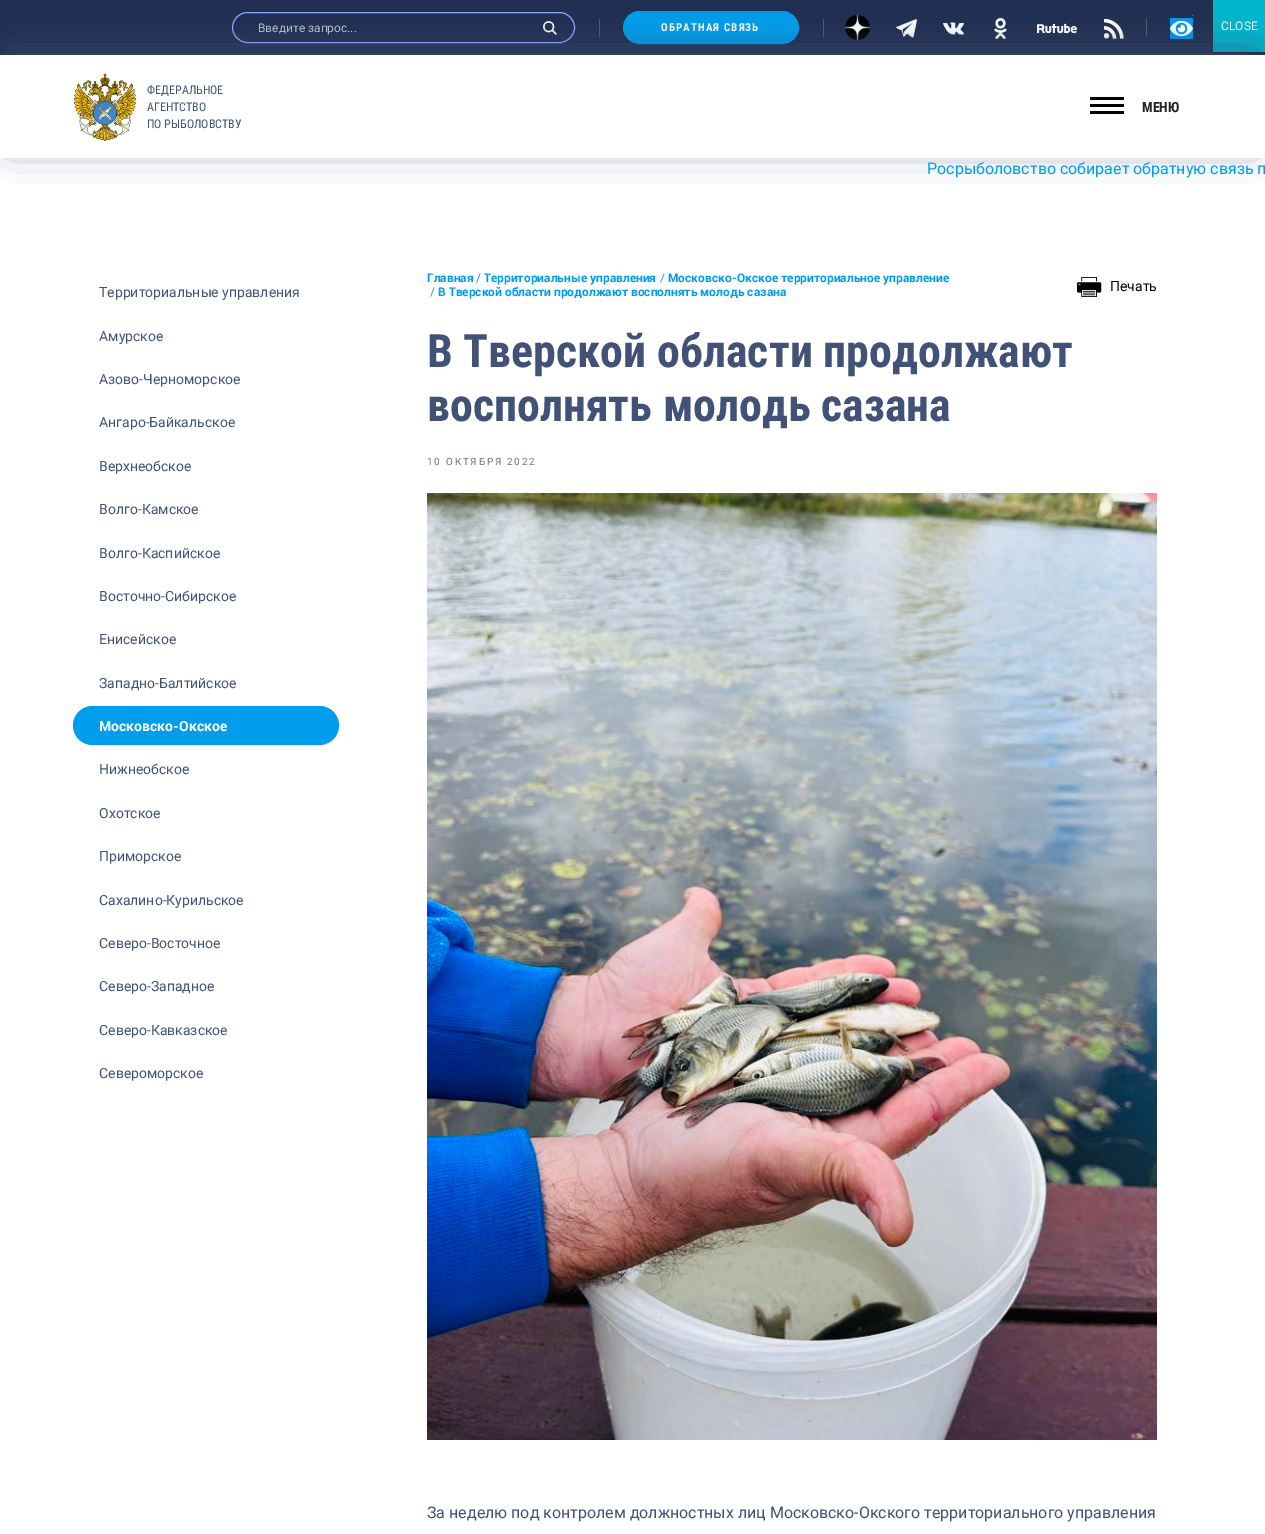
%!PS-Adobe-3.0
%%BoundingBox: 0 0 1265 1534
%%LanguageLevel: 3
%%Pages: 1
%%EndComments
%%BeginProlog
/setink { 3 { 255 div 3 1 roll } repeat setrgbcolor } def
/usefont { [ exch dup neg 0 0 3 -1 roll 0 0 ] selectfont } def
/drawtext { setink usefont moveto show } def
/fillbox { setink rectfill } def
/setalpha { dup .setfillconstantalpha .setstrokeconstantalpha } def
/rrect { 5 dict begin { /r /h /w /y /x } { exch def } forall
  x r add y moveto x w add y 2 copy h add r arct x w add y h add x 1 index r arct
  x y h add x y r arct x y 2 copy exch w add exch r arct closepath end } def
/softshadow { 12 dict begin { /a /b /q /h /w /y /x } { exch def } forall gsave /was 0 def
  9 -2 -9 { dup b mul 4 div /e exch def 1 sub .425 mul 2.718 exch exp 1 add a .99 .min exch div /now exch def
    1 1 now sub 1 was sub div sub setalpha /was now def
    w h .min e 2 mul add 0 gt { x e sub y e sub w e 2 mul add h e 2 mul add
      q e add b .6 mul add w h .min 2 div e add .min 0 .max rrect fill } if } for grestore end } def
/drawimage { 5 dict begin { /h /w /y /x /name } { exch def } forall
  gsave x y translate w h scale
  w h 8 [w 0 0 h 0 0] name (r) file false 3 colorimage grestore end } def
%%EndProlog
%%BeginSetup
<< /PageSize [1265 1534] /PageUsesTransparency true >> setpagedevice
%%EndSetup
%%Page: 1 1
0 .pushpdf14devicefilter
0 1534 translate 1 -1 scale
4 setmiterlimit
0 0 1265 1534 255 255 255 fillbox
0 0 1265 55 33 47 82 fillbox
2 2 2 setink
1214 1 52 52 0 1.5 0.23 softshadow
1214 1 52 52 0 1.5 0.23 softshadow
1213 0 52 52 0 183 205 fillbox
(CLOSE) 1221 30 /Roboto-Regular 12 255 255 255 drawtext
137 170 255 setink
232.5 12.5 342 30 15 rrect stroke
(Введите запрос...) 258 32 /Roboto-Regular 12 188 193 203 drawtext
(assets/img1.rgb) 543 21 14 14 drawimage
599 19 1 18 77 89 117 fillbox
0 157 236 setink
624 12 174 31 15.5 rrect gsave fill grestore
2 setlinewidth
stroke
/RobotoCondensed-Bold 11 usefont
255 255 255 setink
661 31 moveto 1.1 0 (ОБРАТНАЯ СВЯЗЬ) ashow
823 19 1 18 77 89 117 fillbox
(assets/img2.rgb) 845 15 25 25 drawimage
(assets/img3.rgb) 896 19 21 19 drawimage
(assets/img4.rgb) 943 22 21 13 drawimage
(assets/img5.rgb) 994 18 13 21 drawimage
(assets/img6.rgb) 1037 23 40 11 drawimage
(assets/img7.rgb) 1104 19 20 20 drawimage
1146 18 1 18 77 89 117 fillbox
1170 18 23 21 2 153 231 fillbox
1192 15 1 1 2 153 231 fillbox
(assets/img8.rgb) 1170 20 23 17 drawimage
66 81 119 setink
11 58 1243 81 0 20 1 softshadow
0 55 1265 103 255 255 255 fillbox
(assets/img9.rgb) 73 73 64 69 drawimage
(ФЕДЕРАЛЬНОЕ) 147 94 /RobotoCondensed-Regular 12 66 81 119 drawtext
(АГЕНТСТВО) 147 111 /RobotoCondensed-Regular 12 66 81 119 drawtext
(ПО РЫБОЛОВСТВУ) 147 128 /RobotoCondensed-Regular 12 66 81 119 drawtext
1090 97 34 3 0 0 0 fillbox
1090 104 34 3 0 0 0 fillbox
1090 111 34 3 0 0 0 fillbox
(МЕНЮ) 1142 112 /RobotoCondensed-Bold 14 33 37 41 drawtext
(Росрыболовство собирает обратную связь п) 927 174 /Roboto-Regular 16 0 157 236 drawtext
(Территориальные управления) 99 297 /Roboto-Regular 14 66 81 119 drawtext
(Амурское) 99 341 /Roboto-Regular 14 66 81 119 drawtext
(Азово-Черноморское) 99 384 /Roboto-Regular 14 66 81 119 drawtext
(Ангаро-Байкальское) 99 427 /Roboto-Regular 14 66 81 119 drawtext
(Верхнеобское) 99 471 /Roboto-Regular 14 66 81 119 drawtext
(Волго-Камское) 99 514 /Roboto-Regular 14 66 81 119 drawtext
(Волго-Каспийское) 99 558 /Roboto-Regular 14 66 81 119 drawtext
(Восточно-Сибирское) 99 601 /Roboto-Regular 14 66 81 119 drawtext
(Енисейское) 99 644 /Roboto-Regular 14 66 81 119 drawtext
(Западно-Балтийское) 99 688 /Roboto-Regular 14 66 81 119 drawtext
0 157 236 setink
73 706 266 39 19.5 rrect fill
(Московско-Окское) 99 731 /Roboto-Bold 14 255 255 255 drawtext
(Нижнеобское) 99 774 /Roboto-Regular 14 66 81 119 drawtext
(Охотское) 99 818 /Roboto-Regular 14 66 81 119 drawtext
(Приморское) 99 861 /Roboto-Regular 14 66 81 119 drawtext
(Сахалино-Курильское) 99 905 /Roboto-Regular 14 66 81 119 drawtext
(Северо-Восточное) 99 948 /Roboto-Regular 14 66 81 119 drawtext
(Северо-Западное) 99 991 /Roboto-Regular 14 66 81 119 drawtext
(Северо-Кавказское) 99 1035 /Roboto-Regular 14 66 81 119 drawtext
(Североморское) 99 1078 /Roboto-Regular 14 66 81 119 drawtext
(Главная) 427 282 /Roboto-Bold 12 0 157 236 drawtext
(/) 476 282 /Roboto-Regular 12 0 157 236 drawtext
(Территориальные управления) 484 282 /Roboto-Bold 12 0 157 236 drawtext
(/) 660 282 /Roboto-Regular 12 0 157 236 drawtext
(Московско-Окское территориальное управление) 668 282 /Roboto-Bold 12 0 157 236 drawtext
(/) 430 296 /Roboto-Regular 12 0 157 236 drawtext
(В Тверской области продолжают восполнять молодь сазана) 438 296 /Roboto-Bold 12 0 157 236 drawtext
(assets/img10.rgb) 1077 277 25 20 drawimage
(Печать) 1110 291 /Roboto-Regular 14 0 0 0 drawtext
(В Тверской области продолжают) 427 367 /RobotoCondensed-Bold 46 66 81 119 drawtext
(восполнять молодь сазана) 427 421 /RobotoCondensed-Bold 46 66 81 119 drawtext
/Roboto-Regular 10 usefont
108 117 125 setink
427 465 moveto 1.75 0 (10 ОКТЯБРЯ 2022) ashow
(assets/img11.rgb) 427 493 730 947 drawimage
(За неделю под контролем должностных лиц Московско-Окского территориального управления) 427 1518 /Roboto-Regular 16 66 81 119 drawtext
.poppdf14devicefilter showpage
%%EOF
